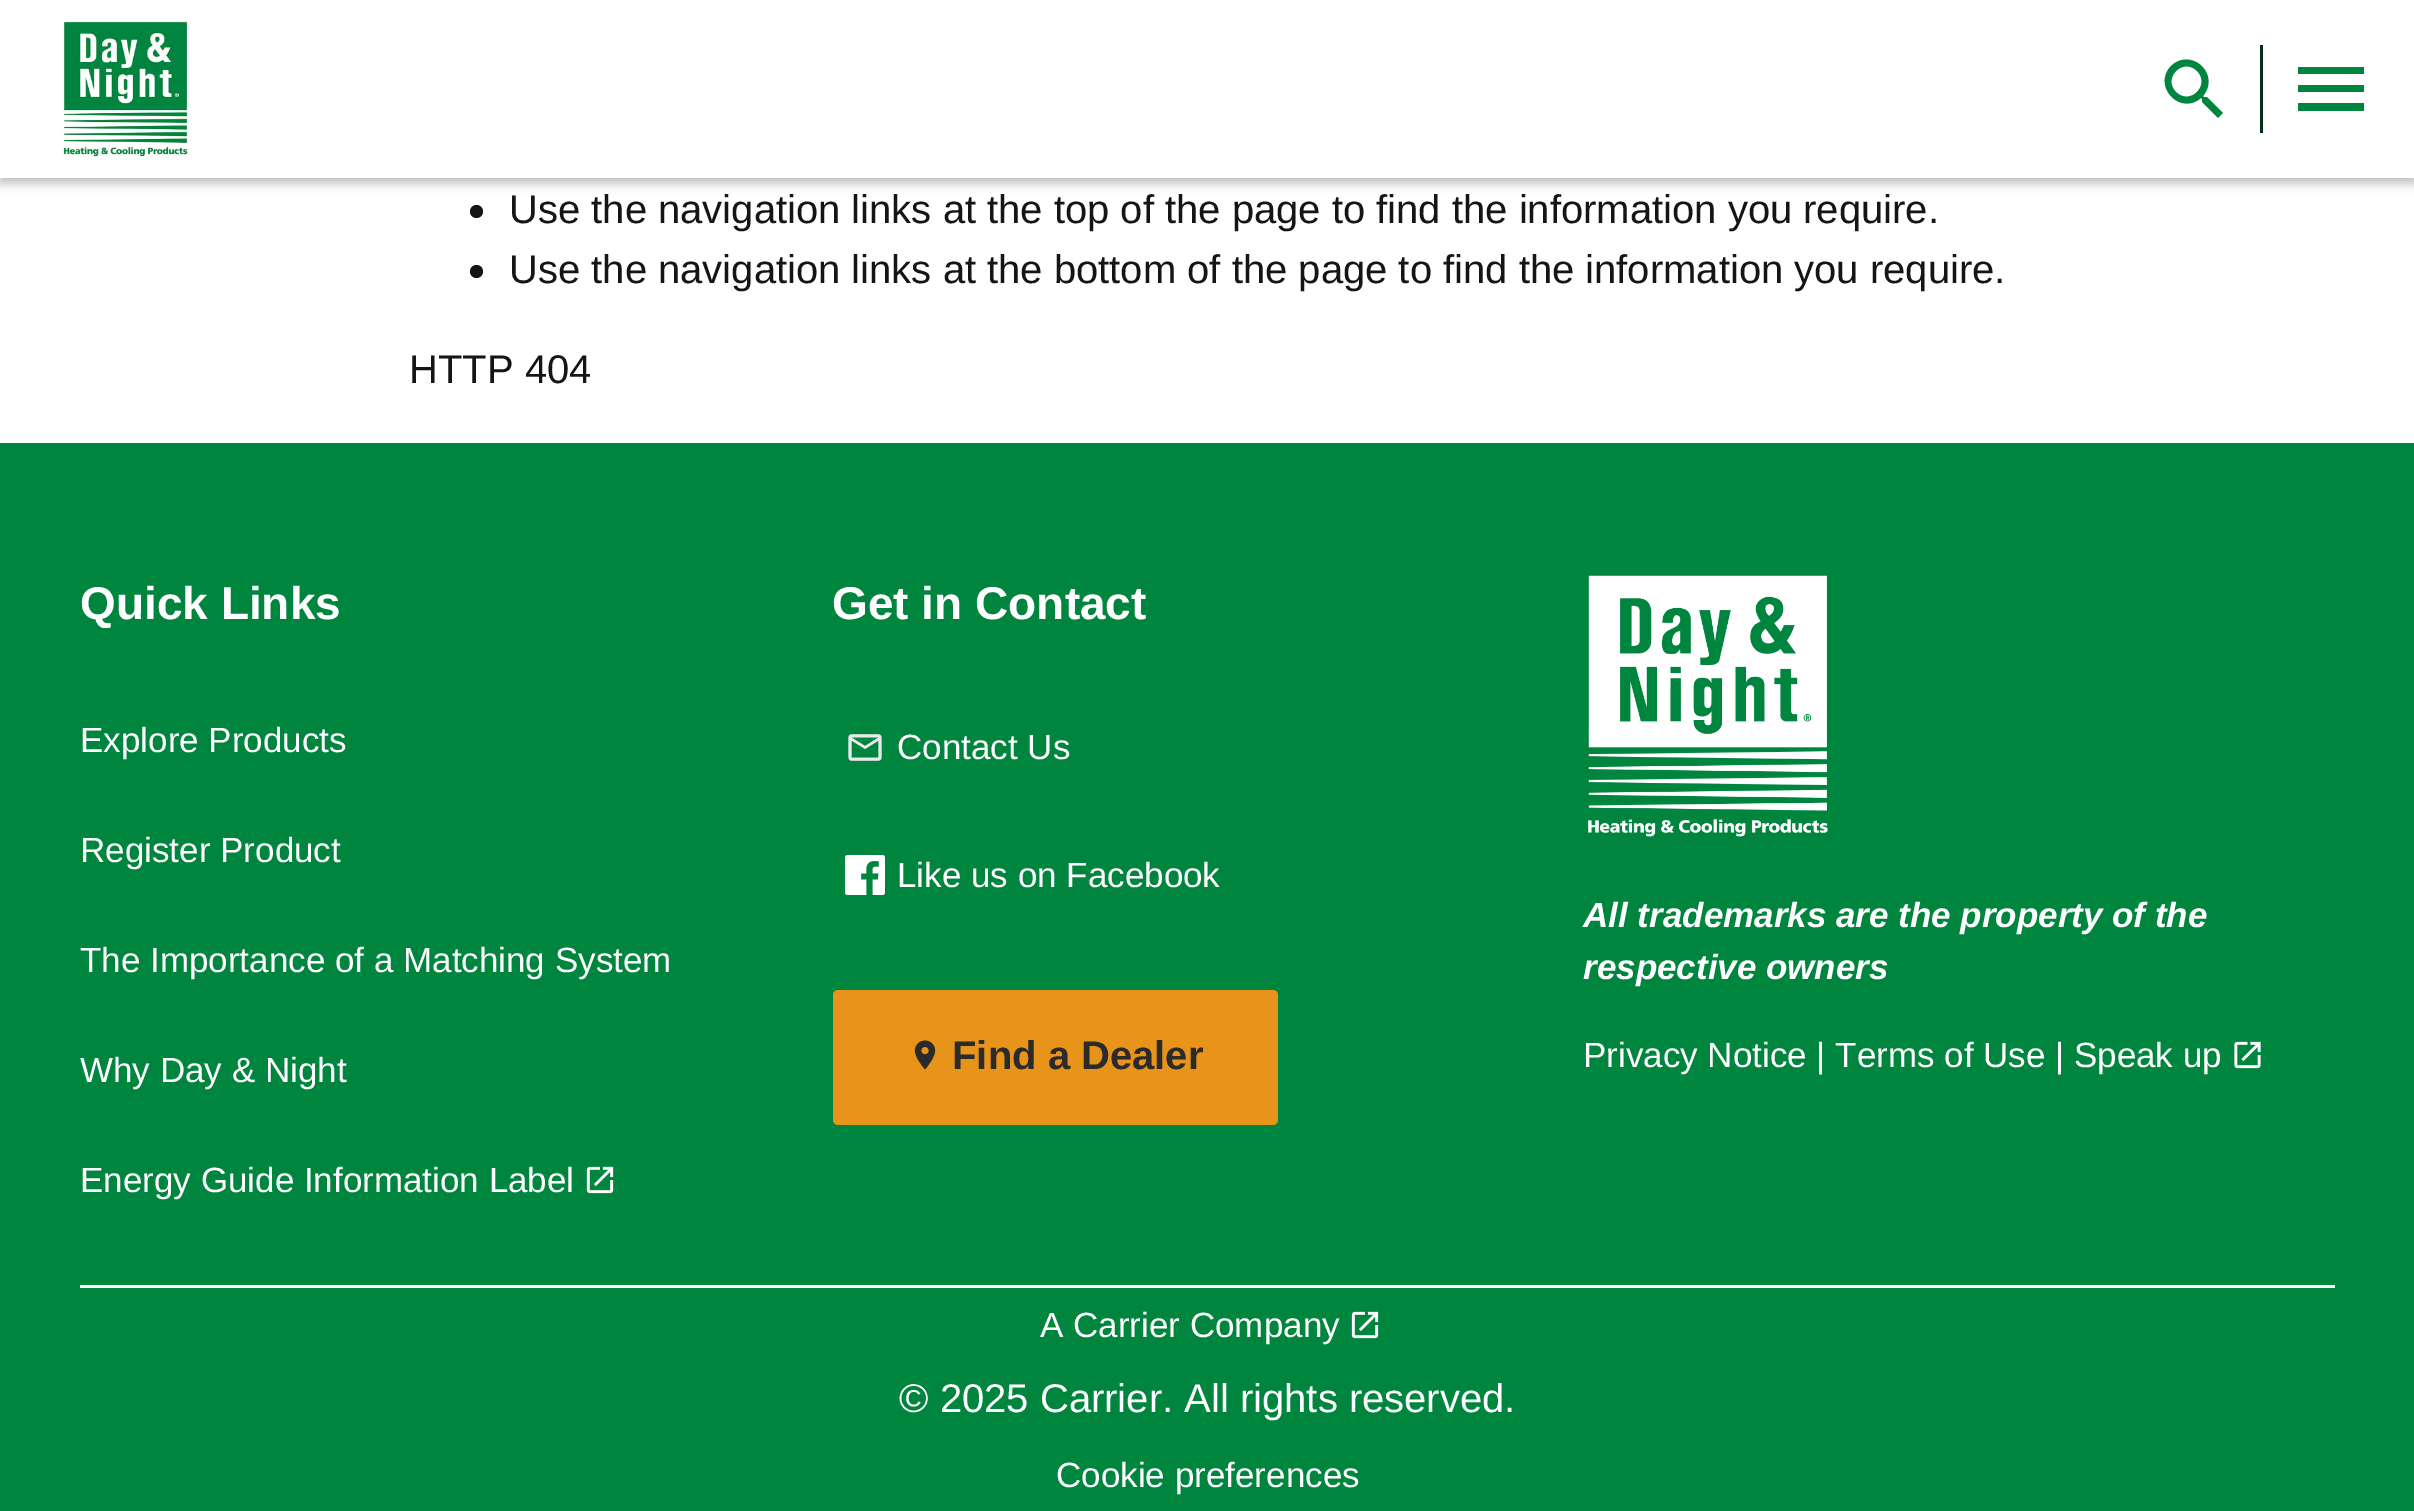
%!PS-Adobe-3.0
%%BoundingBox: 0 0 2414 1511
%%LanguageLevel: 3
%%Pages: 1
%%EndComments
%%BeginProlog
/setink { 3 { 255 div 3 1 roll } repeat setrgbcolor } def
/usefont { [ exch dup neg 0 0 3 -1 roll 0 0 ] selectfont } def
/drawtext { setink usefont moveto show } def
/fillbox { setink rectfill } def
/setalpha { dup .setfillconstantalpha .setstrokeconstantalpha } def
/disc { newpath 0 360 arc closepath } def
/rrect { 5 dict begin { /r /h /w /y /x } { exch def } forall
  x r add y moveto x w add y 2 copy h add r arct x w add y h add x 1 index r arct
  x y h add x y r arct x y 2 copy exch w add exch r arct closepath end } def
/softshadow { 12 dict begin { /a /b /q /h /w /y /x } { exch def } forall gsave /was 0 def
  9 -2 -9 { dup b mul 4 div /e exch def 1 sub .425 mul 2.718 exch exp 1 add a .99 .min exch div /now exch def
    1 1 now sub 1 was sub div sub setalpha /was now def
    w h .min e 2 mul add 0 gt { x e sub y e sub w e 2 mul add h e 2 mul add
      q e add b .6 mul add w h .min 2 div e add .min 0 .max rrect fill } if } for grestore end } def
/drawimage { 5 dict begin { /h /w /y /x /name } { exch def } forall
  gsave x y translate w h scale
  w h 8 [w 0 0 h 0 0] name (r) file false 3 colorimage grestore end } def
%%EndProlog
%%BeginSetup
<< /PageSize [2414 1511] /PageUsesTransparency true >> setpagedevice
%%EndSetup
%%Page: 1 1
0 .pushpdf14devicefilter
0 1511 translate 1 -1 scale
4 setmiterlimit
0 0 2414 1511 255 255 255 fillbox
0 0 0 setink
0 -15 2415 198 0 5 0.26 softshadow
0 0 2414 178 255 255 255 fillbox
(assets/img1.rgb) 62 21 127 136 drawimage
0 133 63 setink
2176 92 moveto 2190 106 2211 85 2197 71 curveto 2183 57 2162 78 2176 92 curveto closepath 2207 97 moveto 2223 113 lineto 2218 118 lineto 2202 102 lineto 2202 99 lineto 2201 98 lineto 2180 116 2152 86 2171 66 curveto 2191 47 2221 74 2203 96 curveto 2204 97 lineto closepath fill
2260 45 3 88 0 51 24 fillbox
0 133 63 setink
2298 67 moveto 2364 67 lineto 2364 74 lineto 2298 74 lineto closepath 2298 92 moveto 2298 85 lineto 2364 85 lineto 2364 92 lineto closepath 2298 111 moveto 2298 103 lineto 2364 103 lineto 2364 111 lineto closepath fill
21 21 21 setink
476.5 211.5 6.5 disc fill
(Use the navigation links at the top of the page to find the information you require.) 509 223 /LiberationSans-Regular 40 21 21 21 drawtext
476.5 271.5 6.5 disc fill
(Use the navigation links at the bottom of the page to find the information you require.) 509 283 /LiberationSans-Regular 40 21 21 21 drawtext
(HTTP 404) 409 383 /LiberationSans-Regular 40 21 21 21 drawtext
0 443 2414 1068 0 133 63 fillbox
(Quick Links) 80 619 /LiberationSans-Bold 46 255 255 255 drawtext
(Explore Products) 80 752 /LiberationSans-Regular 35 255 255 255 drawtext
(Register Product) 80 862 /LiberationSans-Regular 35 255 255 255 drawtext
(The Importance of a Matching System) 80 972 /LiberationSans-Regular 35 255 255 255 drawtext
(Why Day & Night) 80 1082 /LiberationSans-Regular 35 255 255 255 drawtext
(Energy Guide Information Label) 80 1192 /LiberationSans-Regular 35 255 255 255 drawtext
(assets/img2.rgb) 586 1166 28 28 drawimage
(Get in Contact) 832 619 /LiberationSans-Bold 46 255 255 255 drawtext
(assets/img3.rgb) 848 734 34 27 drawimage
(Contact Us) 897 759 /LiberationSans-Regular 35 255 255 255 drawtext
(assets/img4.rgb) 845 855 40 40 drawimage
(Like us on Facebook) 897 887 /LiberationSans-Regular 35 255 255 255 drawtext
232 148 26 setink
833 990 445 135 5 rrect fill
(assets/img5.rgb) 914 1040 22 30 drawimage
(Find a Dealer) 952 1069 /LiberationSans-Bold 40 43 43 43 drawtext
(assets/img6.rgb) 1588 575 240 262 drawimage
(All trademarks are the property of the) 1583 927 /LiberationSans-BoldItalic 35 255 255 255 drawtext
(respective owners) 1583 979 /LiberationSans-BoldItalic 35 255 255 255 drawtext
(Privacy Notice | Terms of Use | Speak up) 1583 1067 /LiberationSans-Regular 35 255 255 255 drawtext
(assets/img7.rgb) 2234 1041 27 28 drawimage
80 1285 2255 3 255 255 255 fillbox
(A Carrier Company) 1040 1337 /LiberationSans-Regular 35 255 255 255 drawtext
(assets/img2.rgb) 1351 1311 28 28 drawimage
(© 2025 Carrier. All rights reserved.) 899 1412 /LiberationSans-Regular 40 255 255 255 drawtext
(Cookie preferences) 1056 1487 /LiberationSans-Regular 35 255 255 255 drawtext
.poppdf14devicefilter showpage
%%EOF
